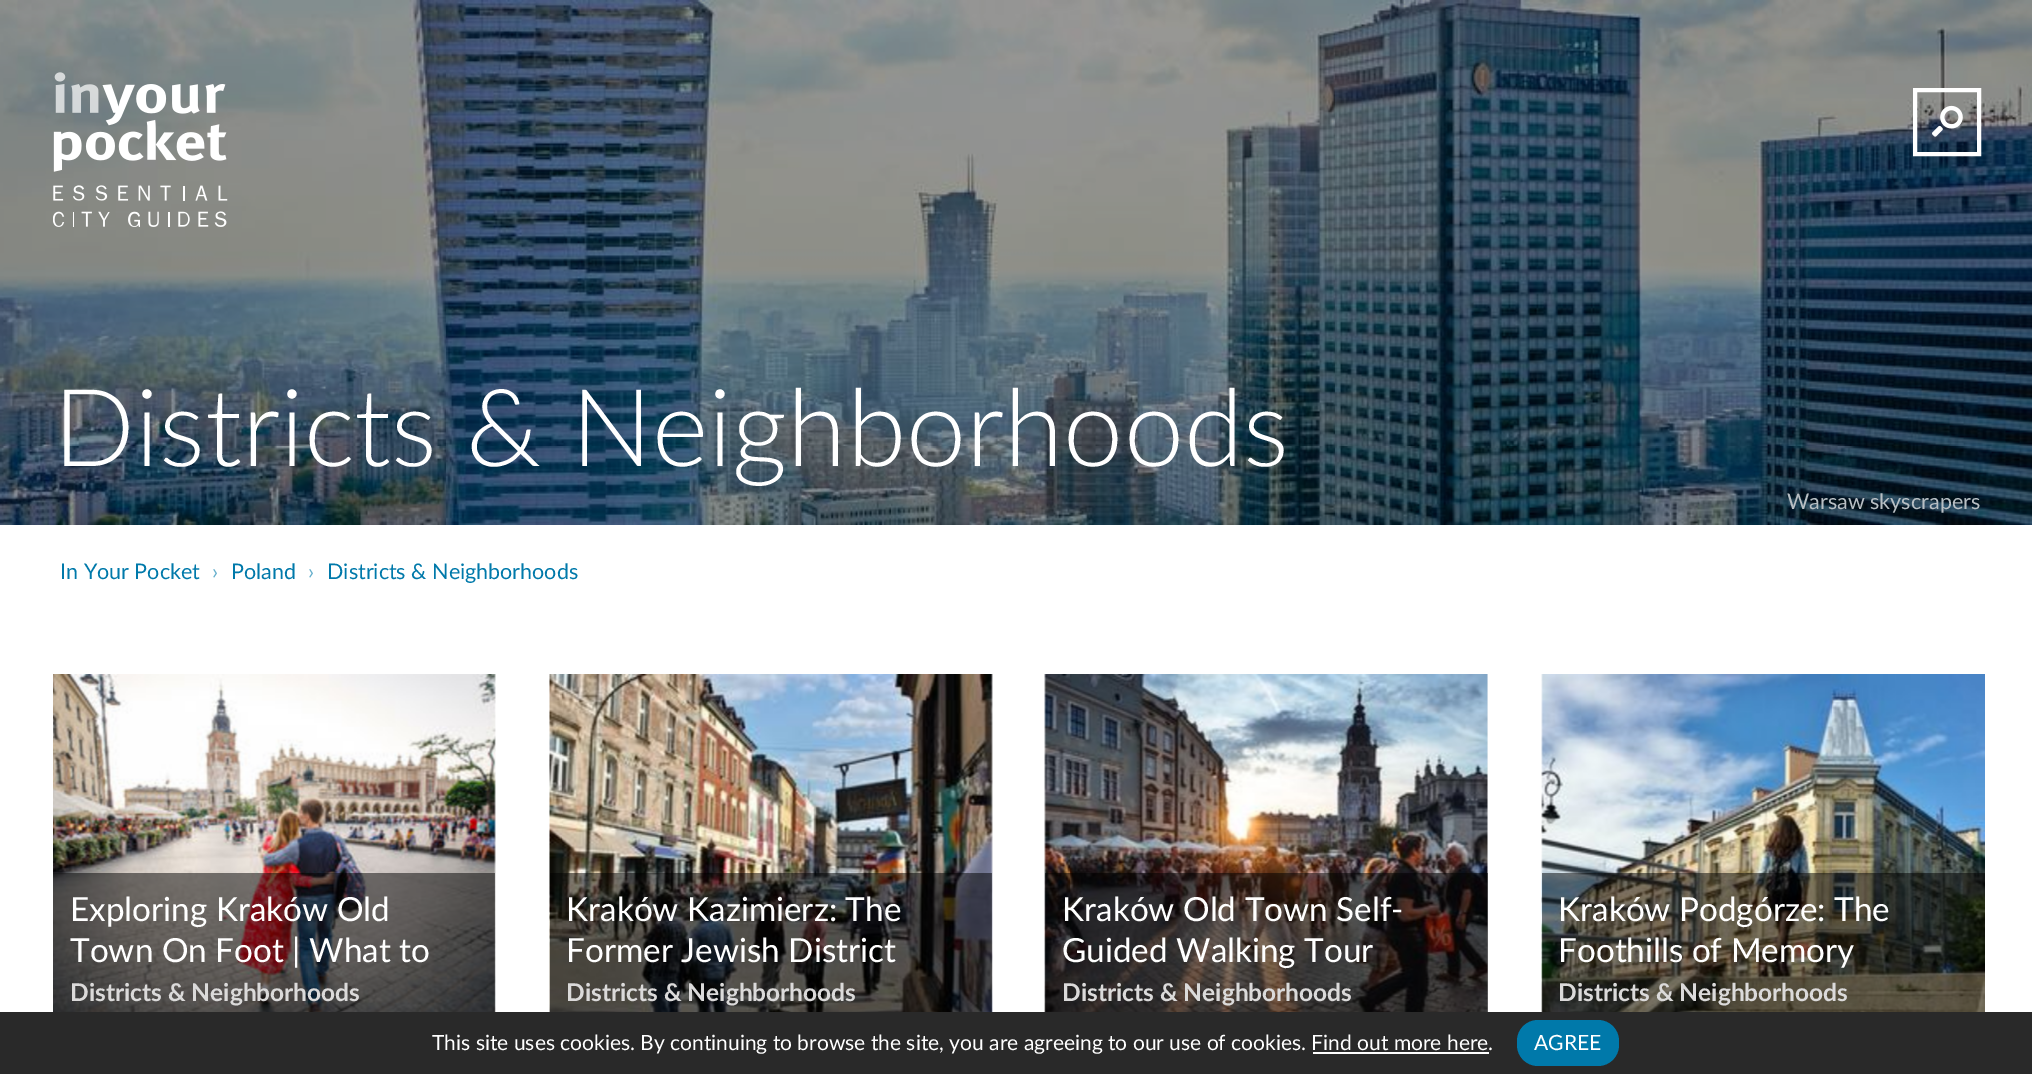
%!PS-Adobe-3.0
%%BoundingBox: 0 0 2032 1074
%%LanguageLevel: 3
%%Pages: 1
%%EndComments
%%BeginProlog
/setink { 3 { 255 div 3 1 roll } repeat setrgbcolor } def
/usefont { [ exch dup neg 0 0 3 -1 roll 0 0 ] selectfont } def
/drawtext { setink usefont moveto show } def
/fillbox { setink rectfill } def
/setalpha { dup .setfillconstantalpha .setstrokeconstantalpha } def
/rrect { 5 dict begin { /r /h /w /y /x } { exch def } forall
  x r add y moveto x w add y 2 copy h add r arct x w add y h add x 1 index r arct
  x y h add x y r arct x y 2 copy exch w add exch r arct closepath end } def
/drawimage { 5 dict begin { /h /w /y /x /name } { exch def } forall
  gsave x y translate w h scale
  w h 8 [w 0 0 h 0 0] name (r) file false 3 colorimage grestore end } def
%%EndProlog
%%BeginSetup
<< /PageSize [2032 1074] /PageUsesTransparency true >> setpagedevice
%%EndSetup
%%Page: 1 1
0 .pushpdf14devicefilter
0 1074 translate 1 -1 scale
4 setmiterlimit
0 0 2032 1074 255 255 255 fillbox
(assets/img1.rgb) 0 0 2032 525 drawimage
(assets/img2.rgb) 53 72 175 155 drawimage
4 setlinewidth
1915 90 64 64 rectstroke
(assets/img3.rgb) 1932 105 31 32 drawimage
(Districts & Neighborhoods) 53 466 /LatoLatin-Light 107.75 255 255 255 drawtext
(Warsaw skyscrapers) 1787 509 /LatoLatin-Regular 21.5 184 191 196 drawtext
(In Your Pocket) 60 579 /LatoLatin-Regular 21.5 0 121 170 drawtext
(›) 212 579 /LatoLatin-Regular 21.5 102 175 204 drawtext
(Poland) 231 579 /LatoLatin-Regular 21.5 0 121 170 drawtext
(›) 308 579 /LatoLatin-Regular 21.5 102 175 204 drawtext
(Districts & Neighborhoods) 327 579 /LatoLatin-Regular 21.5 0 121 170 drawtext
(assets/img4.rgb) 53 674 443 338 drawimage
0.5 setalpha
53 873 442 139 0 0 0 fillbox
1 setalpha
(Exploring Kraków Old) 70 921 /LatoLatin-Regular 33.25 255 255 255 drawtext
(Town On Foot | What to) 70 962 /LatoLatin-Regular 33.25 255 255 255 drawtext
(Districts & Neighborhoods) 70 1001 /LatoLatin-Bold 24.5 219 218 218 drawtext
(assets/img5.rgb) 549 674 444 338 drawimage
0.5 setalpha
550 873 442 139 0 0 0 fillbox
1 setalpha
(Kraków Kazimierz: The) 566 921 /LatoLatin-Regular 33.25 255 255 255 drawtext
(Former Jewish District) 566 962 /LatoLatin-Regular 33.25 255 255 255 drawtext
(Districts & Neighborhoods) 566 1001 /LatoLatin-Bold 24.5 219 218 218 drawtext
1045 674 443 338 245 245 245 fillbox
(assets/img6.rgb) 1044 674 444 338 drawimage
0.5 setalpha
1045 873 443 139 0 0 0 fillbox
1 setalpha
(Kraków Old Town Self-) 1062 921 /LatoLatin-Regular 33.25 255 255 255 drawtext
(Guided Walking Tour) 1062 962 /LatoLatin-Regular 33.25 255 255 255 drawtext
(Districts & Neighborhoods) 1062 1001 /LatoLatin-Bold 24.5 219 218 218 drawtext
(assets/img7.rgb) 1541 674 444 338 drawimage
0.5 setalpha
1542 873 443 139 0 0 0 fillbox
1 setalpha
(Kraków Podgórze: The) 1558 921 /LatoLatin-Regular 33.25 255 255 255 drawtext
(Foothills of Memory) 1558 962 /LatoLatin-Regular 33.25 255 255 255 drawtext
(Districts & Neighborhoods) 1558 1001 /LatoLatin-Bold 24.5 219 218 218 drawtext
0 1012 2032 62 41 41 41 fillbox
(This site uses cookies. By continuing to browse the site, you are agreeing to our use of cookies. Find out more here.) 432 1050 /LatoLatin-Regular 21 255 255 255 drawtext
0 121 170 setink
1517 1020 102 46 21 rrect fill
(AGREE) 1534 1050 /LatoLatin-Regular 21 255 255 255 drawtext
1313 1052 176 2 255 255 255 fillbox
.poppdf14devicefilter showpage
%%EOF
